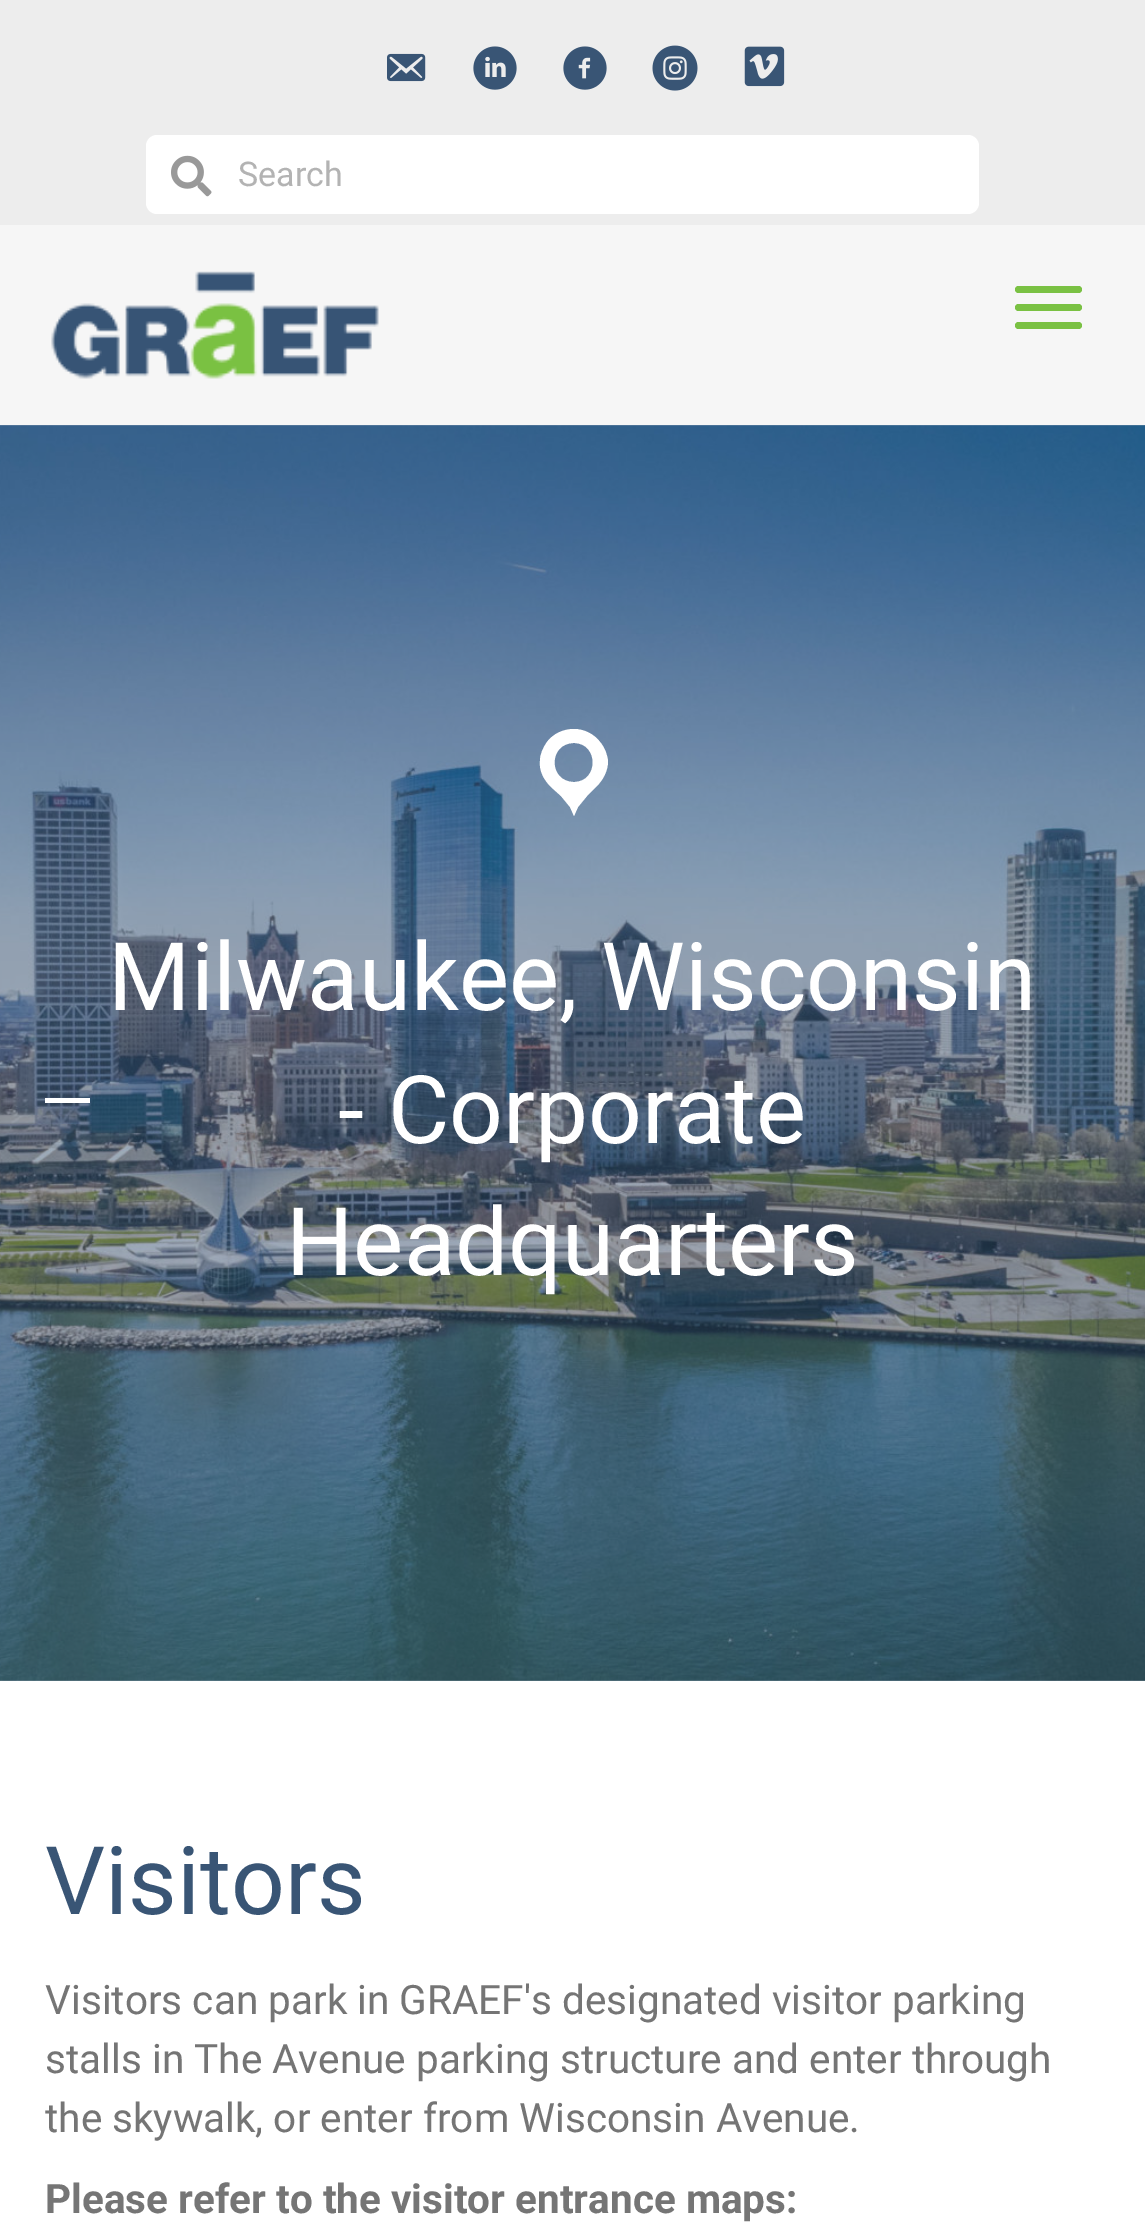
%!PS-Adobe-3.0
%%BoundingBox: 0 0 1145 2229
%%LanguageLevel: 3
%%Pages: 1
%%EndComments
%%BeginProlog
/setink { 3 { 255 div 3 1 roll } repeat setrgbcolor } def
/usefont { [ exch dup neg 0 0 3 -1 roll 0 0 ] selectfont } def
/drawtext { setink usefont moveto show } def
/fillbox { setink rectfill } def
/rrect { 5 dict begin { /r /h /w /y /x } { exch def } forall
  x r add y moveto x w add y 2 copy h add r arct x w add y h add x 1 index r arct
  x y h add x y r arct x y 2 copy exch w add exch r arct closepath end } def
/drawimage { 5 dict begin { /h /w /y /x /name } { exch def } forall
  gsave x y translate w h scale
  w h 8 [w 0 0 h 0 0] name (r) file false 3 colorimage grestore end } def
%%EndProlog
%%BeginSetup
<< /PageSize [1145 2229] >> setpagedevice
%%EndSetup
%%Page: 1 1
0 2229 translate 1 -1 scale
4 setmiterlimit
0 0 1145 2229 255 255 255 fillbox
0 0 1145 225 237 237 237 fillbox
(assets/img1.rgb) 387 53 39 29 drawimage
(assets/img2.rgb) 473 46 44 44 drawimage
(assets/img3.rgb) 563 46 44 44 drawimage
(assets/img4.rgb) 652 45 46 46 drawimage
(assets/img5.rgb) 744 46 41 41 drawimage
255 255 255 setink
146 135 833 79 11 rrect fill
(assets/img6.rgb) 171 155 41 42 drawimage
(Search) 238 186 /Roboto-Regular 34 179 179 179 drawtext
0 225 1145 200 246 246 246 fillbox
(assets/img7.rgb) 51 271 328 108 drawimage
122 193 67 setink
1015 304 67 7 3.5 rrect fill
1015 286 67 7 3.5 rrect fill
1015 322 67 7 3.5 rrect fill
(assets/img8.rgb) 0 425 1145 1256 drawimage
255 255 255 setink
574 729 moveto 563 729 553 734 547 742 curveto 543 748 540 754 540 761 curveto 539 771 544 780 551 787 curveto 561 796 lineto 570 807 lineto 574 816 lineto 578 807 lineto 587 796 lineto 596 787 lineto 603 780 608 771 608 761 curveto 607 754 605 748 600 742 curveto 594 734 584 729 574 729 curveto closepath 574 743 moveto 599 743 599 782 574 782 curveto 548 782 548 743 574 743 curveto closepath fill
45 1098 45 5 255 255 255 fillbox
(Milwaukee, Wisconsin) 108 1010 /Roboto-Regular 94.5 255 255 255 drawtext
(- Corporate) 338 1143 /Roboto-Regular 94.5 255 255 255 drawtext
(Headquarters) 286 1275 /Roboto-Regular 94.5 255 255 255 drawtext
(Visitors) 45 1914 /Roboto-Regular 94.5 57 85 117 drawtext
(Visitors can park in GRAEF's designated visitor parking) 45 2014 /Roboto-Regular 40.5 117 117 117 drawtext
(stalls in The Avenue parking structure and enter through) 45 2073 /Roboto-Regular 40.5 117 117 117 drawtext
(the skywalk, or enter from Wisconsin Avenue.) 45 2132 /Roboto-Regular 40.5 117 117 117 drawtext
(Please refer to the visitor entrance maps:) 45 2213 /Roboto-Bold 40.5 117 117 117 drawtext
showpage
%%EOF
